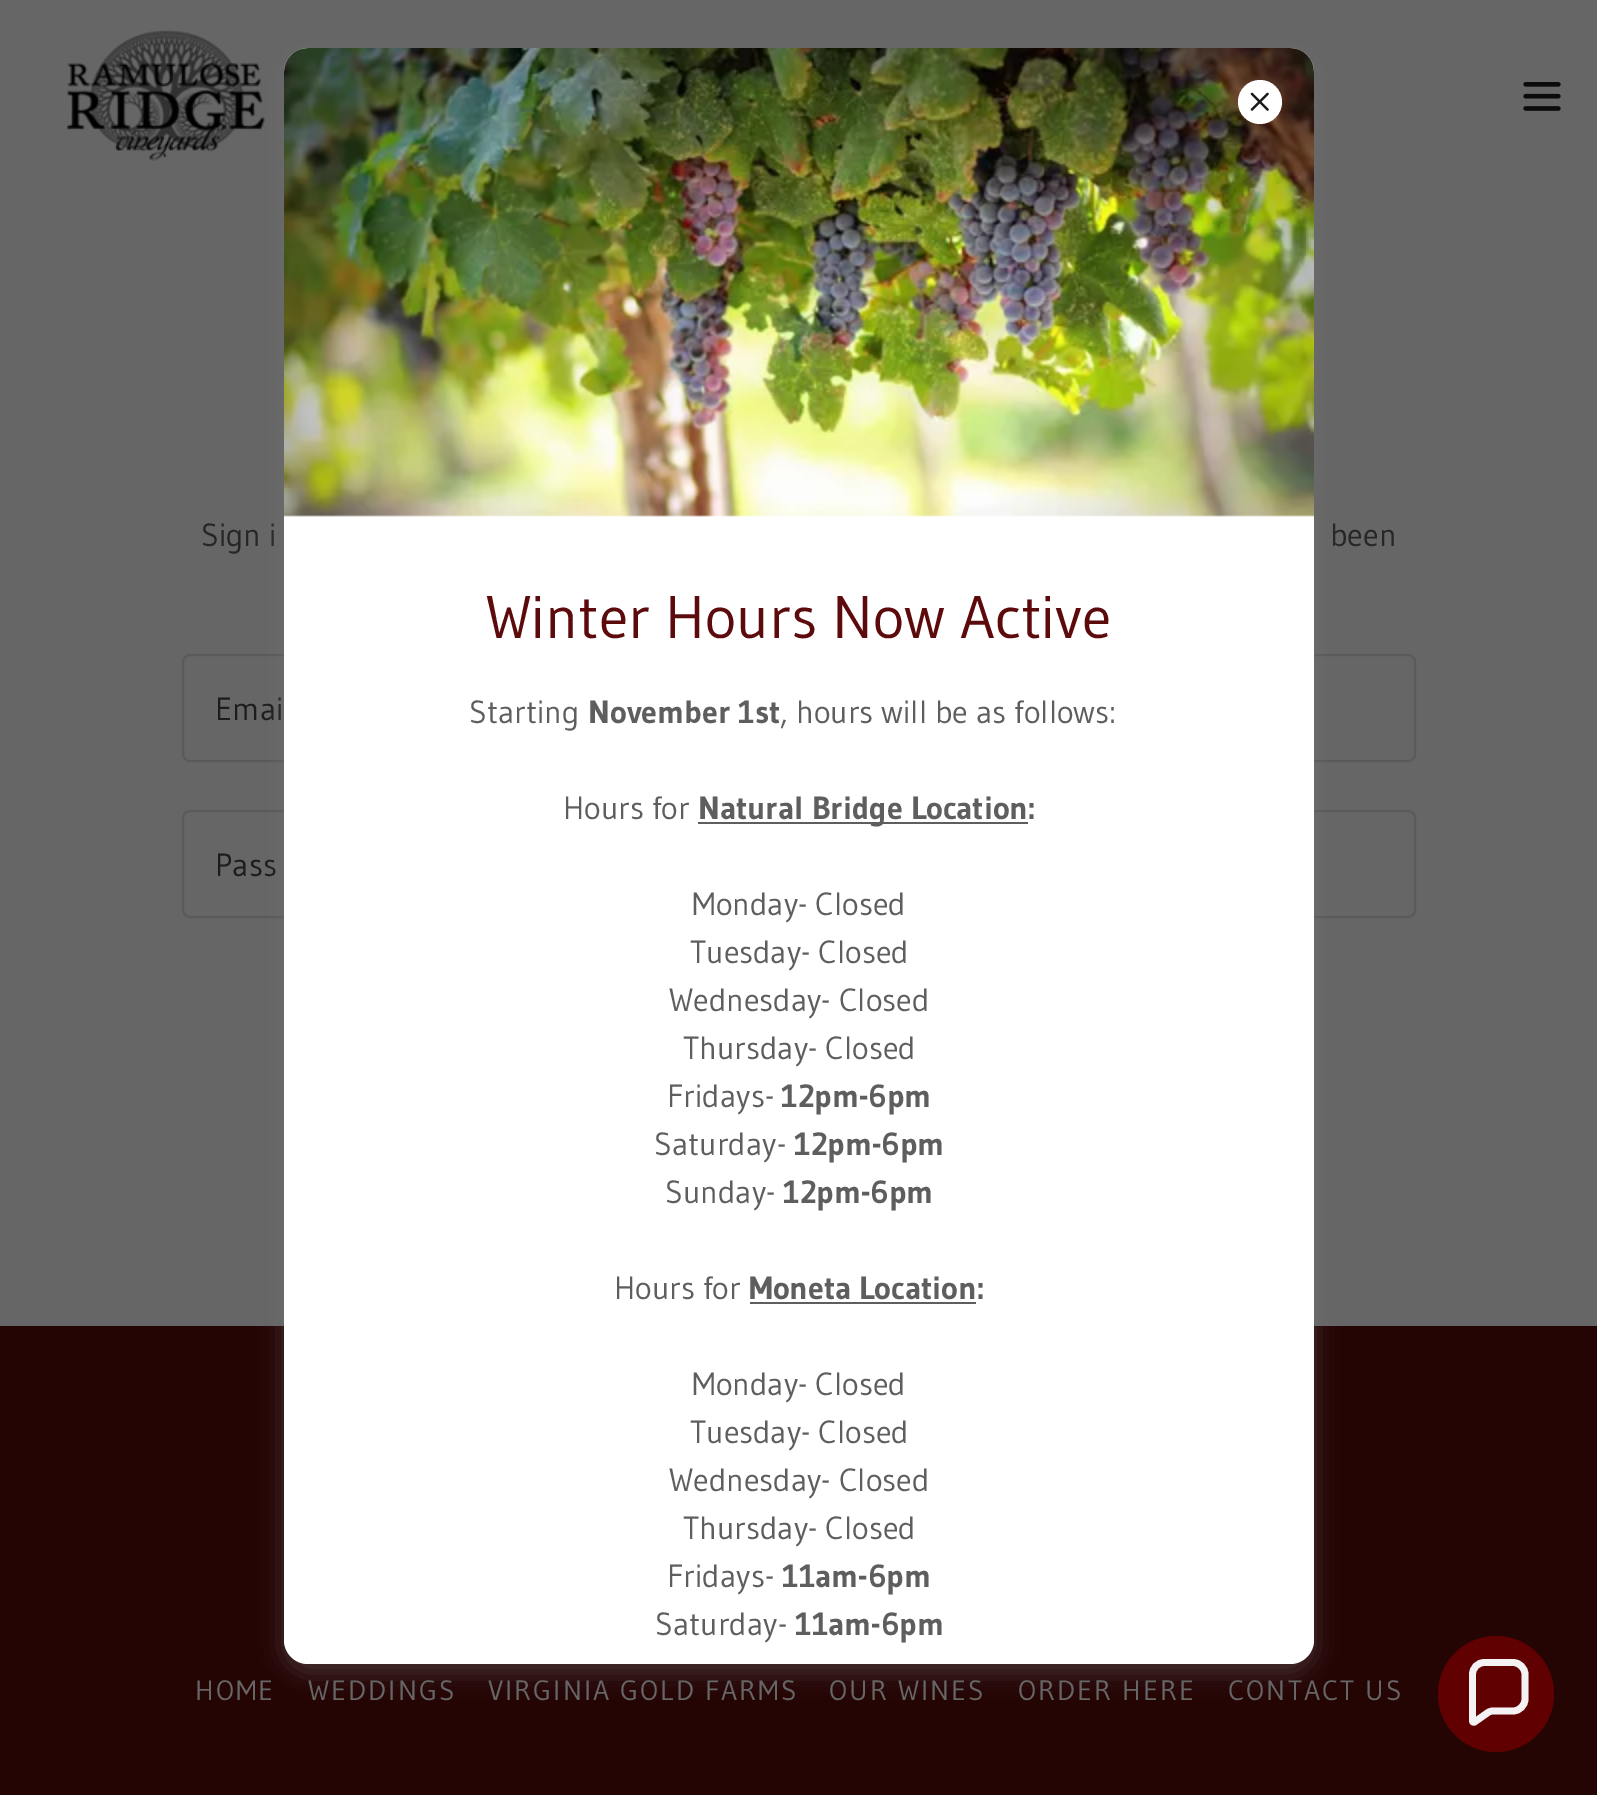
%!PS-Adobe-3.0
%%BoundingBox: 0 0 1597 1795
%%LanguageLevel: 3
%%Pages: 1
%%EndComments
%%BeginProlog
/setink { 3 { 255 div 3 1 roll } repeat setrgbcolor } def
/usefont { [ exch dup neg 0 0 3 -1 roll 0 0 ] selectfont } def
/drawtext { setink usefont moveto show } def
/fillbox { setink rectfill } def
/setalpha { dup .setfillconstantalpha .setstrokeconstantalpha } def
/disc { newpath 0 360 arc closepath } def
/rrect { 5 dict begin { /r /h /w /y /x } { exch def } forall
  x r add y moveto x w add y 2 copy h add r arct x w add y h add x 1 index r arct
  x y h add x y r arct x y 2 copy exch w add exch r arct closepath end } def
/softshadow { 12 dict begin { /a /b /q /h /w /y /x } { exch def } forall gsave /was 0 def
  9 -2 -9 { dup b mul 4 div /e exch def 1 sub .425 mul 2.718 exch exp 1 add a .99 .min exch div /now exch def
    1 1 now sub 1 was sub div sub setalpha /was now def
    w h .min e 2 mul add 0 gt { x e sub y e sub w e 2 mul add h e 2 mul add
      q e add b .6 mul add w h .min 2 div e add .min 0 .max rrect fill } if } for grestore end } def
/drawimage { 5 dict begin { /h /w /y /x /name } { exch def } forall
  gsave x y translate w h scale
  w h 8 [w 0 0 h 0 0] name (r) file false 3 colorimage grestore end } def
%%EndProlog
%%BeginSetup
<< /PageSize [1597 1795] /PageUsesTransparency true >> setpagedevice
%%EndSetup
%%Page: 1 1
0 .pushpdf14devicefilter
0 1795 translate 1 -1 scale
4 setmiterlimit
0 0 1597 1795 37 4 4 fillbox
0 0 1597 1326 102 102 102 fillbox
(assets/img1.rgb) 66 30 199 131 drawimage
(assets/img2.rgb) 1523 82 38 29 drawimage
(Sign i) 201 546 /Gudea-Regular 32 38 38 38 drawtext
(been) 1330 546 /Gudea-Regular 32 38 38 38 drawtext
90 90 90 setink
2 setlinewidth
183 655 1232 106 7 rrect stroke
(Emai) 215 720 /Gudea-Regular 32 28 28 28 drawtext
90 90 90 setink
183 811 1232 106 7 rrect stroke
(Pass) 215 876 /Gudea-Regular 32 28 28 28 drawtext
117 117 117 setink
284 56 1030 1616 24 12 0.4 softshadow
255 255 255 setink
284 48 1030 1616 24 rrect fill
(assets/img4.rgb) 284 48 1030 469 drawimage
1260 102 22 disc fill
(assets/img3.rgb) 1250 92 19 19 drawimage
(Winter Hours Now Active) 486 638 /Gudea-Regular 60 92 10 11 drawtext
(Starting) 469 723 /Gudea-Regular 32 94 94 94 drawtext
(November 1st) 588 723 /Gudea-Bold 32 94 94 94 drawtext
(, hours will be as follows:) 780 723 /Gudea-Regular 32 94 94 94 drawtext
(Hours for) 563 819 /Gudea-Regular 32 94 94 94 drawtext
698 822 330 2 94 94 94 fillbox
(Natural Bridge Location:) 698 819 /Gudea-Bold 32 94 94 94 drawtext
(Monday- Closed) 692 915 /Gudea-Regular 32 94 94 94 drawtext
(Tuesday- Closed) 690 963 /Gudea-Regular 32 94 94 94 drawtext
(Wednesday- Closed) 669 1011 /Gudea-Regular 32 94 94 94 drawtext
(Thursday- Closed) 683 1059 /Gudea-Regular 32 94 94 94 drawtext
(Fridays-) 667 1107 /Gudea-Regular 32 94 94 94 drawtext
(12pm-6pm) 781 1107 /Gudea-Bold 32 94 94 94 drawtext
(Saturday-) 654 1155 /Gudea-Regular 32 94 94 94 drawtext
(12pm-6pm) 794 1155 /Gudea-Bold 32 94 94 94 drawtext
(Sunday-) 665 1203 /Gudea-Regular 32 94 94 94 drawtext
(12pm-6pm) 783 1203 /Gudea-Bold 32 94 94 94 drawtext
(Hours for) 614 1299 /Gudea-Regular 32 94 94 94 drawtext
(Moneta Location:) 749 1299 /Gudea-Bold 32 94 94 94 drawtext
750 1302 226 2 94 94 94 fillbox
(Monday- Closed) 692 1395 /Gudea-Regular 32 94 94 94 drawtext
(Tuesday- Closed) 690 1443 /Gudea-Regular 32 94 94 94 drawtext
(Wednesday- Closed) 669 1491 /Gudea-Regular 32 94 94 94 drawtext
(Thursday- Closed) 683 1539 /Gudea-Regular 32 94 94 94 drawtext
(Fridays-) 667 1587 /Gudea-Regular 32 94 94 94 drawtext
(11am-6pm) 782 1587 /Gudea-Bold 32 94 94 94 drawtext
(Saturday-) 655 1635 /Gudea-Regular 32 94 94 94 drawtext
(11am-6pm) 795 1635 /Gudea-Bold 32 94 94 94 drawtext
/Gudea-Regular 28 usefont
102 102 102 setink
195 1700 moveto 2 0 (HOME) ashow
308 1700 moveto 2 0 (WEDDINGS) ashow
488 1700 moveto 2 0 (VIRGINIA GOLD FARMS) ashow
829 1700 moveto 2 0 (OUR WINES) ashow
1018 1700 moveto 2 0 (ORDER HERE) ashow
1228 1700 moveto 2 0 (CONTACT US) ashow
96 0 0 setink
1496 1694 58 disc fill
244 242 242 setink
6.8 setlinewidth
1513 1662.5 moveto 1484.5 1662.5 lineto 1477.5 1662.5 1472.5 1668 1472.5 1674.5 curveto 1472.5 1720.5 lineto 1472.5 1722 1473.5 1722.5 1474.5 1722 curveto 1488 1712.5 lineto 1489.5 1711.5 1491.5 1711 1493 1711 curveto 1513 1711 lineto 1519.5 1711 1525 1705.5 1525 1699 curveto 1525 1674.5 lineto 1525 1668 1519.5 1662.5 1513 1662.5 curveto closepath stroke
.poppdf14devicefilter showpage
%%EOF
